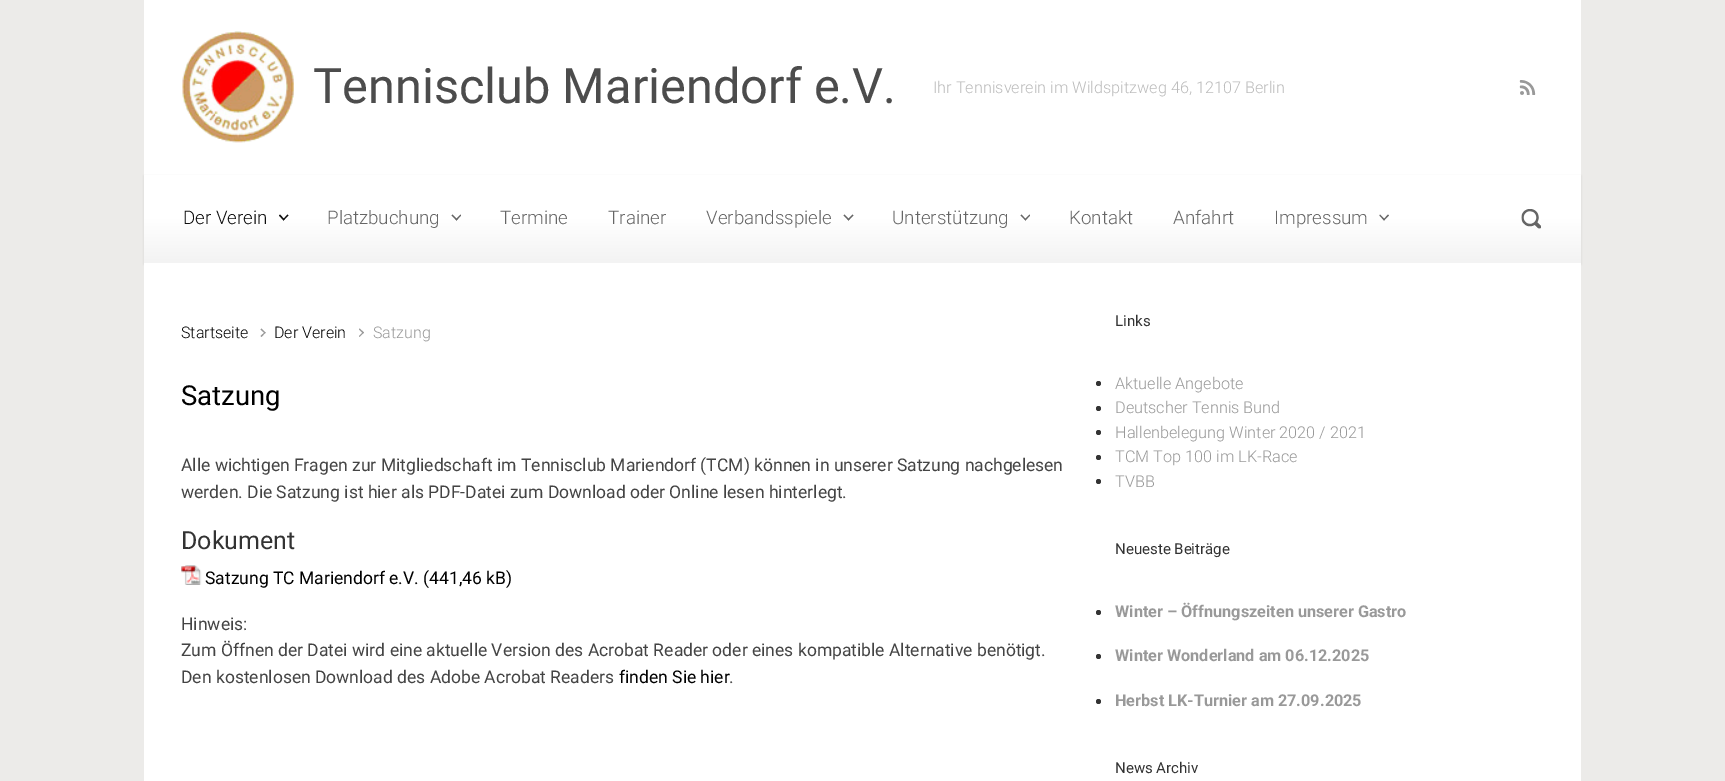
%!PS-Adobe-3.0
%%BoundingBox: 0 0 1725 781
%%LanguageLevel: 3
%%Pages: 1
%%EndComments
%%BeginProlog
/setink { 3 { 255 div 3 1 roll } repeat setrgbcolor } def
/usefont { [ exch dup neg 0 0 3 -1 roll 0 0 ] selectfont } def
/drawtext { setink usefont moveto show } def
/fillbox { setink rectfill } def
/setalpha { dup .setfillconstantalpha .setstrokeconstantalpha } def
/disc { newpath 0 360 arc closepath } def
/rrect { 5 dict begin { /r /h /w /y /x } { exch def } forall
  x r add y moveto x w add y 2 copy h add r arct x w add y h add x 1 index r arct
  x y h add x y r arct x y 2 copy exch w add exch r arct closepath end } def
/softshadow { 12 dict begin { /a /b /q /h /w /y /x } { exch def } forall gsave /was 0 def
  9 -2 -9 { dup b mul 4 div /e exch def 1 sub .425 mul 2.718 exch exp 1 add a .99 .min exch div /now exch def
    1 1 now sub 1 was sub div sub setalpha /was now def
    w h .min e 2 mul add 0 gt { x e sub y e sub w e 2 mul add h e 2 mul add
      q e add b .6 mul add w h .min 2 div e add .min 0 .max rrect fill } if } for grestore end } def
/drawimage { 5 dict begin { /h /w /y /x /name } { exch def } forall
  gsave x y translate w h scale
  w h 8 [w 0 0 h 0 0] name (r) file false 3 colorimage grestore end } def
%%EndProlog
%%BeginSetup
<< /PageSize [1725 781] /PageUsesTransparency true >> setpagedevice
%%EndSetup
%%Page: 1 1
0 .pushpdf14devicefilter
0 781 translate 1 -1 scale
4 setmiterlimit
0 0 1725 781 236 235 233 fillbox
144 0 1437 175 255 255 255 fillbox
(assets/img1.rgb) 182 31 112 112 drawimage
(Tennisclub Mariendorf e.V.) 313 103 /Roboto-Regular 48.75 76 76 76 drawtext
(Ihr Tennisverein im Wildspitzweg 46, 12107 Berlin) 933 93 /Roboto-Light 16.25 188 188 188 drawtext
(assets/img2.rgb) 1519 80 17 15 drawimage
0 0 0 setink
144 176 1437 88 0 1 0.1 softshadow
gsave 144 175 moveto 1581 175 lineto 1581 263 lineto 144 263 lineto closepath clip newpath
<< /ShadingType 2 /ColorSpace /DeviceRGB /Coords [863 175 863 263] /Extend [true true] /Function << /FunctionType 3 /Domain [0 1] /Functions [<< /FunctionType 2 /Domain [0 1] /C0 [1 1 1] /C1 [1 1 1] /N 1 >> << /FunctionType 2 /Domain [0 1] /C0 [1 1 1] /C1 [0.953 0.953 0.953] /N 1 >>] /Bounds [0.5] /Encode [0 1 0 1] >> >> shfill grestore
(Der Verein) 183 224 /Roboto-Light 18.75 15 15 15 drawtext
287.5 214.5 moveto 288.5 215.5 lineto 283.5 220.5 lineto 283 219.5 lineto closepath fill
280 214.5 moveto 284.5 219.5 lineto 283.5 220.5 lineto 279 215.5 lineto closepath fill
(Platzbuchung) 327 224 /Roboto-Light 18.75 102 102 102 drawtext
460.5 214.5 moveto 461 215.5 lineto 456.5 220.5 lineto 455.5 219.5 lineto closepath fill
452.5 214.5 moveto 457.5 219.5 lineto 456.5 220.5 lineto 451.5 215.5 lineto closepath fill
(Termine) 500 224 /Roboto-Light 18.75 102 102 102 drawtext
(Trainer) 608 224 /Roboto-Light 18.75 102 102 102 drawtext
(Verbandsspiele) 706 224 /Roboto-Light 18.75 102 102 102 drawtext
852.5 214.5 moveto 853.5 215.5 lineto 848.5 220.5 lineto 847.5 219.5 lineto closepath fill
844.5 214.5 moveto 849.5 219.5 lineto 848.5 220.5 lineto 843.5 215.5 lineto closepath fill
(Unterstützung) 892 224 /Roboto-Light 18.75 102 102 102 drawtext
1029.5 214.5 moveto 1030 215.5 lineto 1025.5 220.5 lineto 1024.5 219.5 lineto closepath fill
1021.5 214.5 moveto 1026 219.5 lineto 1025.5 220.5 lineto 1020.5 215.5 lineto closepath fill
(Kontakt) 1069 224 /Roboto-Light 18.75 102 102 102 drawtext
(Anfahrt) 1173 224 /Roboto-Light 18.75 102 102 102 drawtext
(Impressum) 1274 224 /Roboto-Light 18.75 102 102 102 drawtext
1388 214.5 moveto 1389 215.5 lineto 1384 220.5 lineto 1383.5 219.5 lineto closepath fill
1380 214.5 moveto 1385 219.5 lineto 1384 220.5 lineto 1379.5 215.5 lineto closepath fill
(assets/img3.rgb) 1521 209 20 20 drawimage
144 263 1437 518 255 255 255 fillbox
(Startseite) 181 338 /Roboto-Light 16 0 0 0 drawtext
153 153 153 setink
260.5 329.5 moveto 261.5 328.5 lineto 265.5 332.5 lineto 265 333.5 lineto closepath fill
260.5 336 moveto 265 332 lineto 265.5 332.5 lineto 261.5 337 lineto closepath fill
(Der Verein) 274 338 /Roboto-Light 16 0 0 0 drawtext
153 153 153 setink
359 329.5 moveto 359.5 328.5 lineto 364 332.5 lineto 363 333.5 lineto closepath fill
359 336 moveto 363 332 lineto 364 332.5 lineto 359.5 337 lineto closepath fill
(Satzung) 373 338 /Roboto-Light 16 153 153 153 drawtext
(Satzung) 181 405 /Roboto-Regular 27.5 0 0 0 drawtext
(Alle wichtigen Fragen zur Mitgliedschaft im Tennisclub Mariendorf \(TCM\) können in unserer Satzung nachgelesen) 181 471 /Roboto-Regular 17.5 68 68 68 drawtext
(werden. Die Satzung ist hier als PDF-Datei zum Download oder Online lesen hinterlegt.) 181 498 /Roboto-Regular 17.5 68 68 68 drawtext
(Dokument) 181 549 /Roboto-Regular 25 51 51 51 drawtext
(assets/img4.rgb) 181 565 21 20 drawimage
(Satzung TC Mariendorf e.V. \(441,46 kB\)) 205 584 /Roboto-Regular 17.5 0 0 0 drawtext
(Hinweis:) 181 630 /Roboto-Regular 17.5 68 68 68 drawtext
(Zum Öffnen der Datei wird eine aktuelle Version des Acrobat Reader oder eines kompatible Alternative benötigt.) 181 656 /Roboto-Regular 17.5 68 68 68 drawtext
(Den kostenlosen Download des Adobe Acrobat Readers) 181 683 /Roboto-Regular 17.5 68 68 68 drawtext
(finden Sie hier) 619 683 /Roboto-Regular 17.5 0 0 0 drawtext
(.) 729 683 /Roboto-Regular 17.5 68 68 68 drawtext
(Links) 1115 326 /Roboto-Regular 15 51 51 51 drawtext
1098.5 383.5 2.5 disc fill
(Aktuelle Angebote) 1115 389 /Roboto-Light 16.25 153 153 153 drawtext
51 51 51 setink
1098.5 408.5 2.5 disc fill
(Deutscher Tennis Bund) 1115 413 /Roboto-Light 16.25 153 153 153 drawtext
51 51 51 setink
1098.5 432.5 2.5 disc fill
(Hallenbelegung Winter 2020 / 2021) 1115 438 /Roboto-Light 16.25 153 153 153 drawtext
51 51 51 setink
1098.5 457.5 2.5 disc fill
(TCM Top 100 im LK-Race) 1115 462 /Roboto-Light 16.25 153 153 153 drawtext
51 51 51 setink
1098.5 481.5 2.5 disc fill
(TVBB) 1115 487 /Roboto-Light 16.25 153 153 153 drawtext
(Neueste Beiträge) 1115 554 /Roboto-Regular 15 51 51 51 drawtext
1098.5 612.5 2.5 disc fill
(Winter – Öffnungszeiten unserer Gastro) 1115 617 /Roboto-Bold 16.25 153 153 153 drawtext
51 51 51 setink
1098.5 656.5 2.5 disc fill
(Winter Wonderland am 06.12.2025) 1115 661 /Roboto-Bold 16.25 153 153 153 drawtext
51 51 51 setink
1098.5 701.5 2.5 disc fill
(Herbst LK-Turnier am 27.09.2025) 1115 706 /Roboto-Bold 16.25 153 153 153 drawtext
(News Archiv) 1115 773 /Roboto-Regular 15 51 51 51 drawtext
.poppdf14devicefilter showpage
%%EOF
